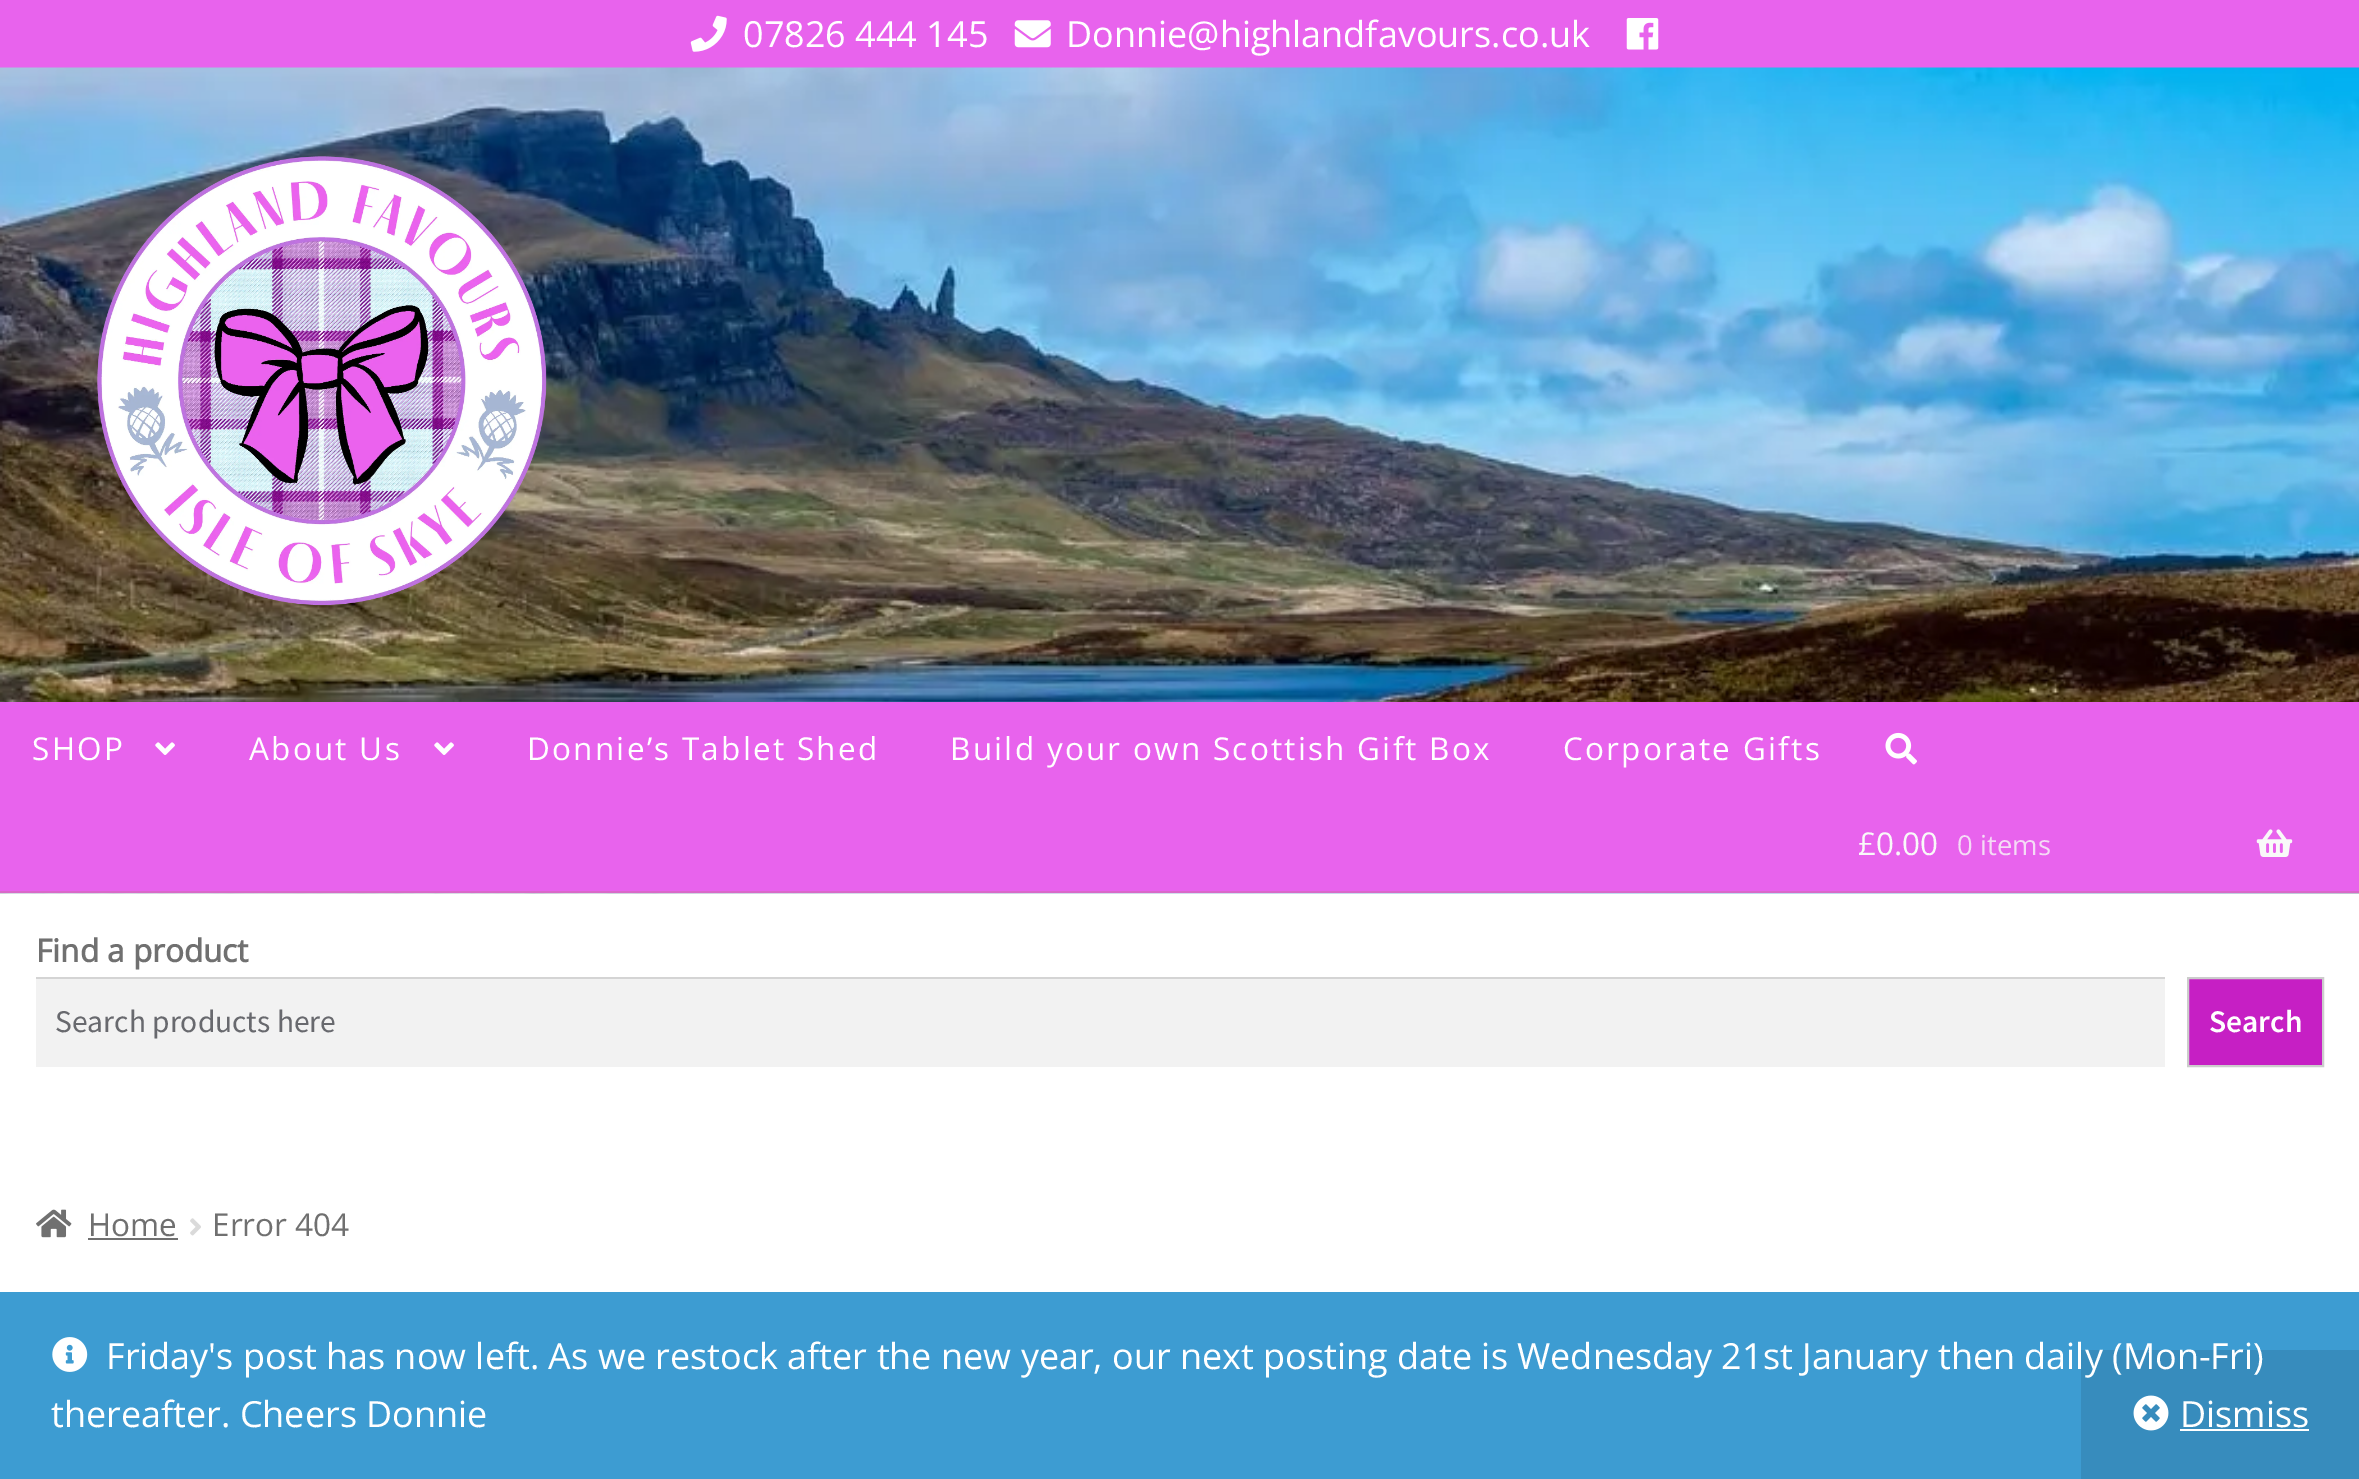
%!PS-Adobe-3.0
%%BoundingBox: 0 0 2359 1479
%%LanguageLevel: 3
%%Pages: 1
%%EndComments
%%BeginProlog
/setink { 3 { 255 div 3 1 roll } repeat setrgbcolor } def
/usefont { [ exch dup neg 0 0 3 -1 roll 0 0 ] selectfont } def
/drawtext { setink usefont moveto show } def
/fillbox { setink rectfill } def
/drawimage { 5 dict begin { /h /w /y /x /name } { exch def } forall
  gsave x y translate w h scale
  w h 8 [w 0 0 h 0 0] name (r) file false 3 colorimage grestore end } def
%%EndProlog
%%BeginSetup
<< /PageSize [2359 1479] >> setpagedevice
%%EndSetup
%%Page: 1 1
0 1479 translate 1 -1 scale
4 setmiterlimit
0 0 2359 1479 255 255 255 fillbox
0 0 2359 68 232 99 237 fillbox
(assets/img1.rgb) 690 15 37 37 drawimage
(07826 444 145) 743 47 /OpenSans-Regular 36 255 255 255 drawtext
(assets/img2.rgb) 1014 20 37 28 drawimage
(Donnie@highlandfavours.co.uk) 1066 47 /OpenSans-Regular 36 255 255 255 drawtext
(assets/img3.rgb) 1626 18 33 32 drawimage
(assets/img4.rgb) 0 67 2359 827 drawimage
0 891 2359 2 217 105 200 fillbox
(assets/img5.rgb) 97 156 478 463 drawimage
0 702 2359 189 232 99 237 fillbox
/OpenSans-Regular 31.5 usefont
255 255 255 setink
32 760 moveto 2.25 0 (SHOP) ashow
(assets/img6.rgb) 155 742 20 13 drawimage
249 760 moveto 2.25 0 (About Us) ashow
(assets/img6.rgb) 434 742 20 13 drawimage
527 760 moveto 2.25 0 (Donnie’s Tablet Shed) ashow
950 760 moveto 2.25 0 (Build your own Scottish Gift Box) ashow
1563 760 moveto 2.25 0 (Corporate Gifts) ashow
(assets/img7.rgb) 1885 732 32 33 drawimage
(£0.00) 1858 855 /OpenSans-Regular 31.5 249 249 249 drawtext
(0 items) 1957 855 /OpenSans-Regular 27.5 245 218 246 drawtext
(assets/img8.rgb) 2256 829 37 28 drawimage
(Find a product) 36 962 /OpenSans-Bold 31.5 112 112 112 drawtext
36 979 2129 88 242 242 242 fillbox
36 977 2129 2 212 212 212 fillbox
(Search products here) 55 1032 /SourceSansPro-Regular 31.5 104 105 110 drawtext
198 31 196 setink
2188 978 moveto 2323 978 lineto 2323 1066 lineto 2188 1066 lineto closepath gsave fill grestore
204 204 204 setink
2 setlinewidth
stroke
(Search) 2209 1032 /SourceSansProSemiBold-SemiBold 31.5 255 255 255 drawtext
(assets/img9.rgb) 36 1209 36 29 drawimage
(Home) 88 1236 /OpenSans-Regular 31.5 112 112 112 drawtext
88 1238 90 2 112 112 112 fillbox
(assets/img10.rgb) 190 1218 11 18 drawimage
(Error 404) 212 1236 /OpenSans-Regular 31.5 112 112 112 drawtext
0 1292 2359 187 61 156 210 fillbox
(assets/img11.rgb) 52 1337 36 35 drawimage
2081 1350 278 129 55 140 189 fillbox
(Friday's post has now left. As we restock after the new year, our next posting date is Wednesday 21st January then daily \(Mon-Fri\)) 106 1369 /OpenSans-Regular 36 255 255 255 drawtext
(thereafter. Cheers Donnie) 51 1427 /OpenSans-Regular 36 255 255 255 drawtext
(assets/img12.rgb) 2133 1395 36 36 drawimage
(Dismiss) 2180 1427 /OpenSans-Regular 36 255 255 255 drawtext
2180 1429 129 2 255 255 255 fillbox
showpage
%%EOF
